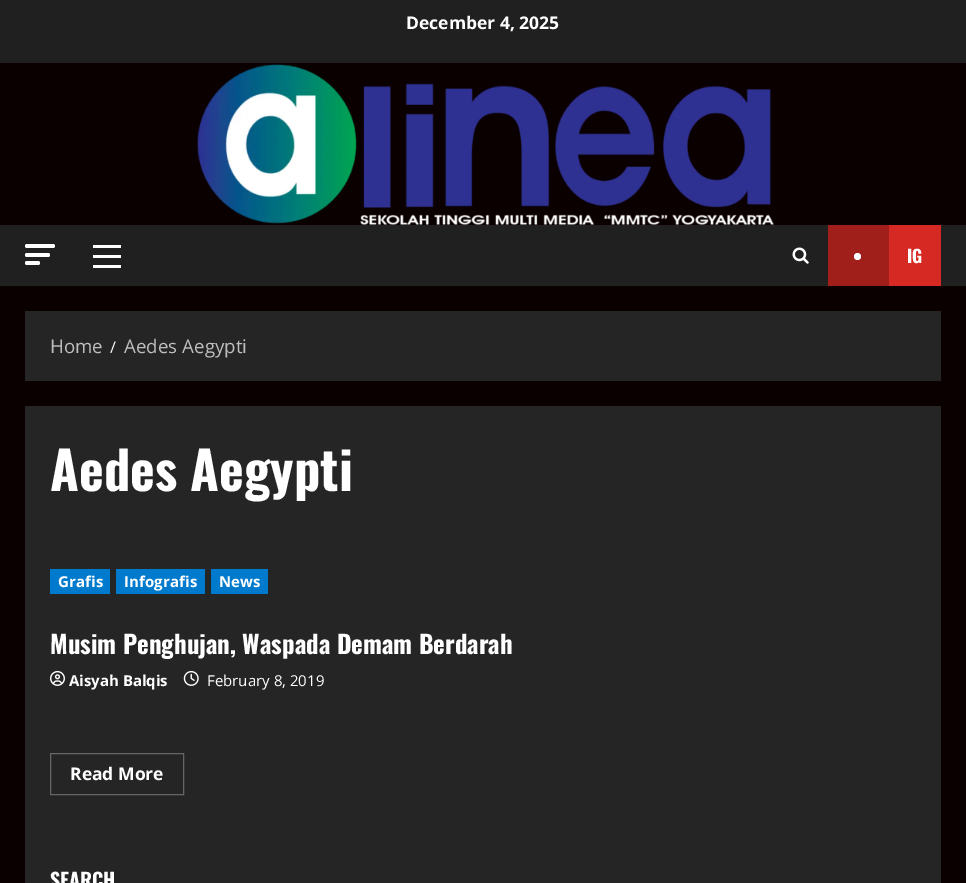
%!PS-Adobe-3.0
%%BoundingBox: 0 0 966 883
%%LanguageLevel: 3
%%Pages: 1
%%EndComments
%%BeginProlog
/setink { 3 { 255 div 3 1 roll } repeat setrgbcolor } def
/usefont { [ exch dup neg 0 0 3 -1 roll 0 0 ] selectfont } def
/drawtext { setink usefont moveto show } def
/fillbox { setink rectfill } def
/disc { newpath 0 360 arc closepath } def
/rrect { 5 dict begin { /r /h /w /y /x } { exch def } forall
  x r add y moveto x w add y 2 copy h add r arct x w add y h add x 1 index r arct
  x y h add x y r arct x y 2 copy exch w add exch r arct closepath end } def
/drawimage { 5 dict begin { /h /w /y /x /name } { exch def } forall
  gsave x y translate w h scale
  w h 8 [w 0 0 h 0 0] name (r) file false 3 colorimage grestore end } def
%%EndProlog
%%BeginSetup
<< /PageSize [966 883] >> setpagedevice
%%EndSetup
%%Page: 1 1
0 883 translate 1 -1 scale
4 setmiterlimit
0 0 966 883 10 0 0 fillbox
0 0 966 63 32 32 32 fillbox
(December 4, 2025) 406 29 /OpenSans-Bold 17.5 255 255 255 drawtext
(assets/img1.rgb) 197 64 577 161 drawimage
0 225 966 61 32 32 32 fillbox
255 255 255 setink
25 244 30 4 2 rrect fill
25 253 25 4 2 rrect fill
25 261 15 4 2 rrect fill
93 255 28 3 255 255 255 fillbox
93 245 28 3 255 255 255 fillbox
93 265 28 3 255 255 255 fillbox
(assets/img2.rgb) 792 247 17 17 drawimage
889 225 52 61 215 41 36 fillbox
828 225 61 61 161 31 27 fillbox
255 255 255 setink
857.5 256.5 3.5 disc fill
(IG) 907 263 /Oswald-Bold 17.5 255 255 255 drawtext
25 311 916 70 37 37 37 fillbox
(Home) 50 353 /OpenSans-Regular 18.75 190 190 190 drawtext
(/) 110 353 /OpenSans-Regular 16 255 255 255 drawtext
(Aedes Aegypti) 124 353 /OpenSans-Regular 18.75 190 190 190 drawtext
25 406 916 477 37 37 37 fillbox
(Aedes Aegypti) 50 491 /Oswald-Bold 52.5 255 255 255 drawtext
50 569 60 25 0 122 204 fillbox
/OpenSans-Bold 15 usefont
255 255 255 setink
58 587 moveto 0.1 0 (Grafis) ashow
116 569 89 25 0 122 204 fillbox
255 255 255 setink
124 587 moveto 0.1 0 (Infografis) ashow
211 569 57 25 0 122 204 fillbox
255 255 255 setink
219 587 moveto 0.1 0 (News) ashow
(Musim Penghujan, Waspada Demam Berdarah) 50 654 /Oswald-Bold 25 255 255 255 drawtext
(assets/img3.rgb) 50 670 15 16 drawimage
(Aisyah Balqis) 69 686 /OpenSans-Bold 15 255 255 255 drawtext
(assets/img4.rgb) 183 670 16 16 drawimage
(February 8, 2019) 207 686 /OpenSans-Regular 15 255 255 255 drawtext
102 102 102 setink
50.5 753.5 133 41 rectstroke
(Read More) 70 780 /OpenSans-Bold 17.5 255 255 255 drawtext
(SEARCH) 50 888 /Oswald-Bold 20 255 255 255 drawtext
showpage
%%EOF
